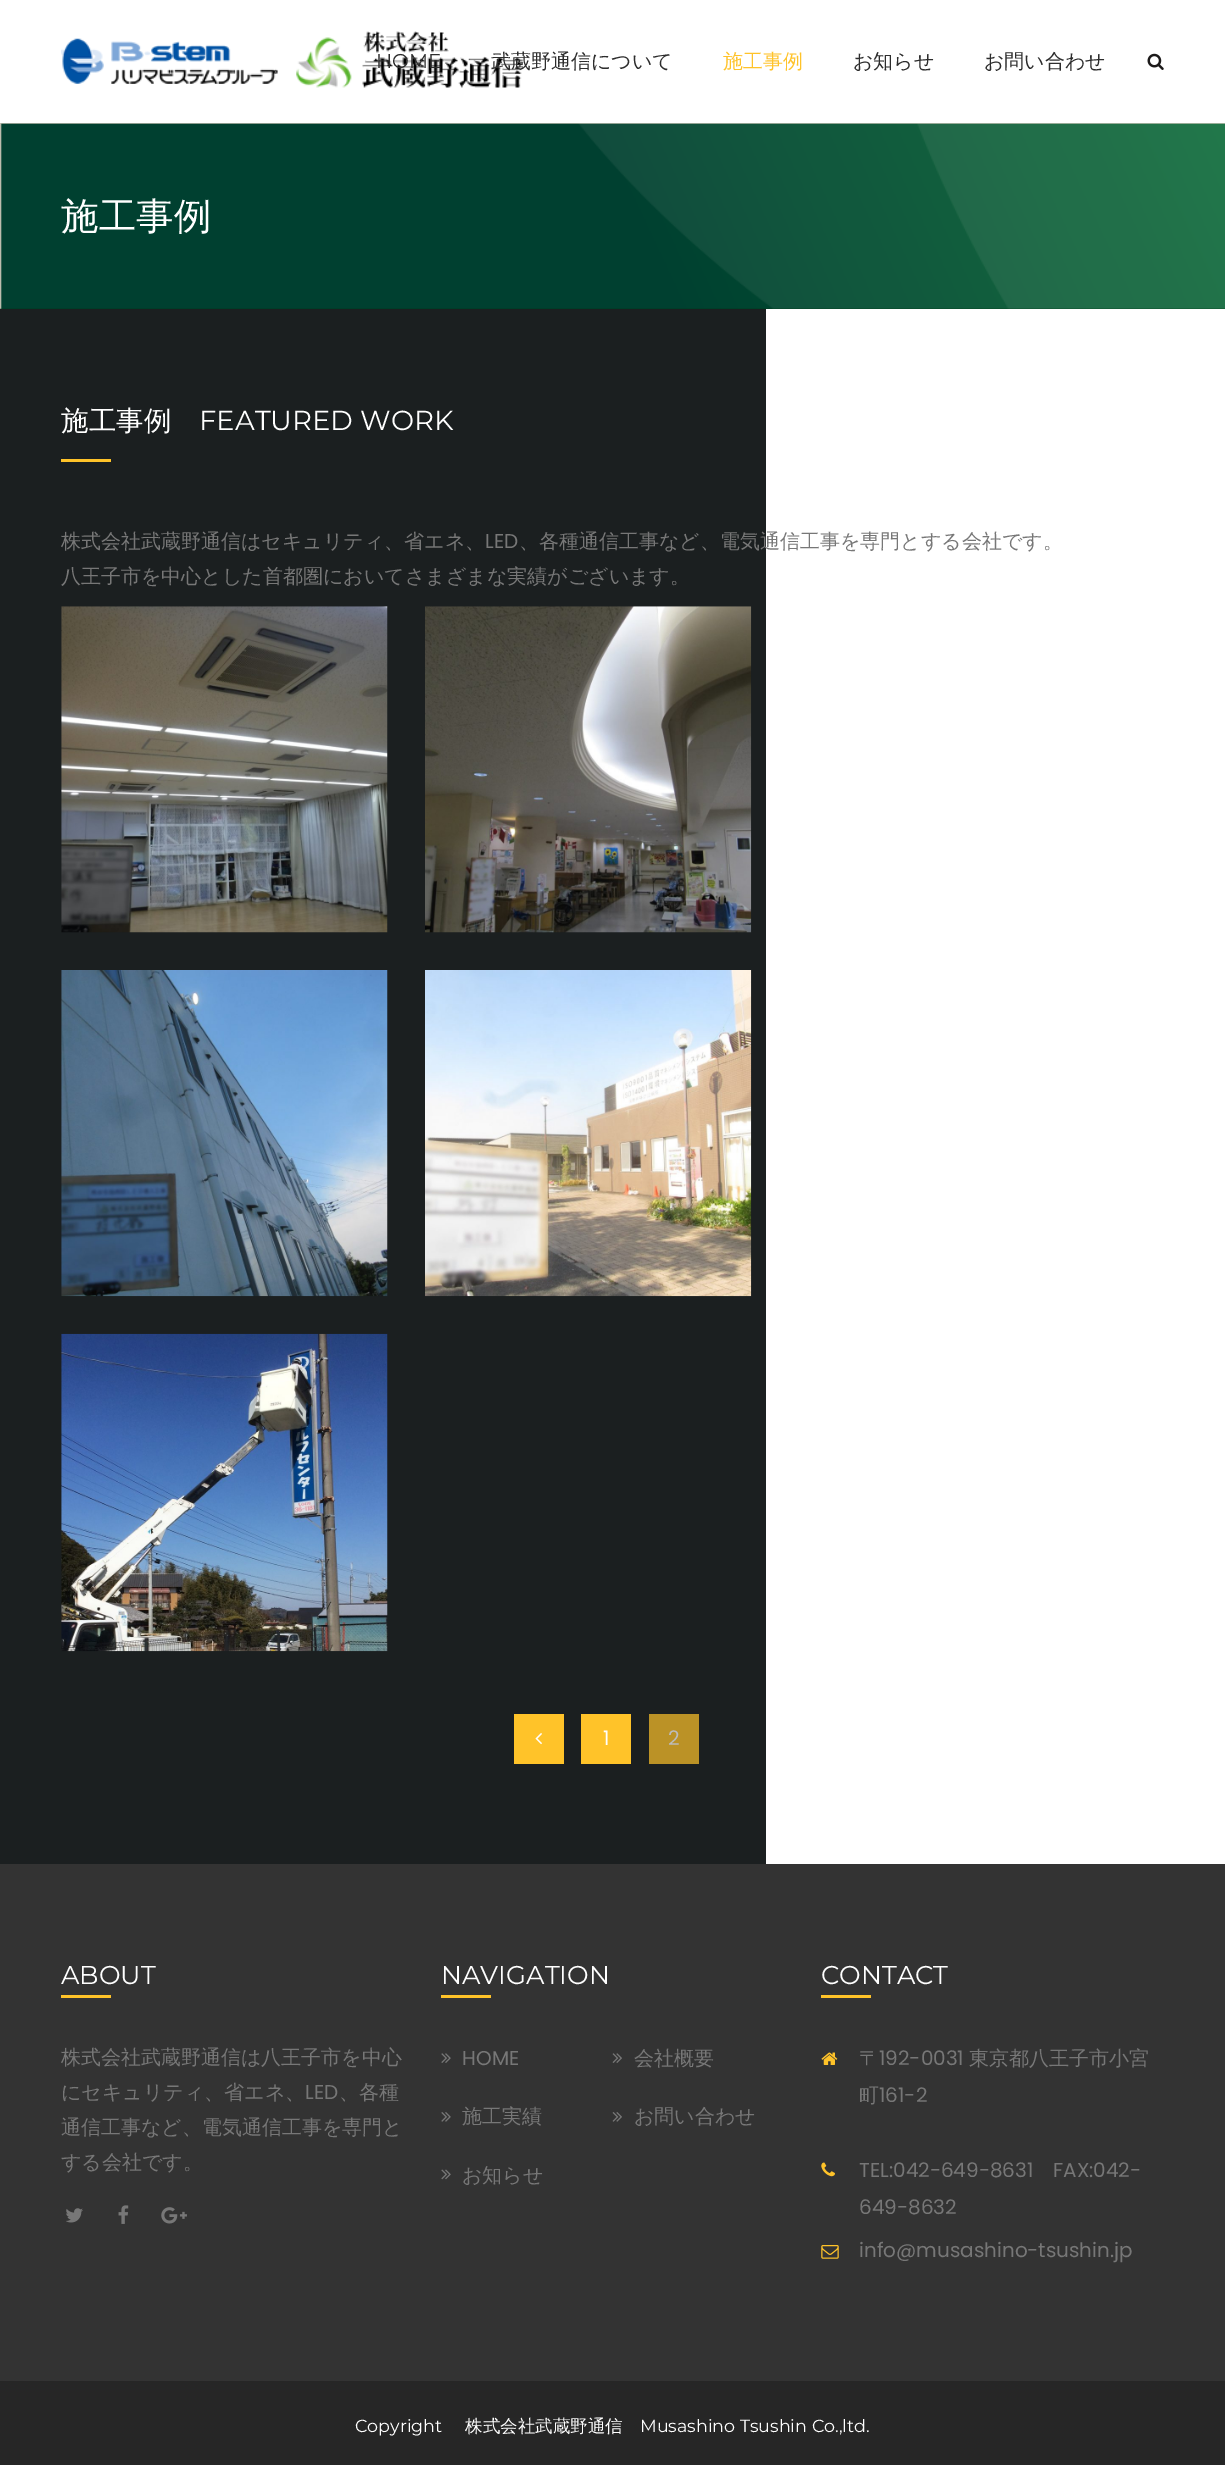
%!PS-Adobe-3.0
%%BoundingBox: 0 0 1225 2465
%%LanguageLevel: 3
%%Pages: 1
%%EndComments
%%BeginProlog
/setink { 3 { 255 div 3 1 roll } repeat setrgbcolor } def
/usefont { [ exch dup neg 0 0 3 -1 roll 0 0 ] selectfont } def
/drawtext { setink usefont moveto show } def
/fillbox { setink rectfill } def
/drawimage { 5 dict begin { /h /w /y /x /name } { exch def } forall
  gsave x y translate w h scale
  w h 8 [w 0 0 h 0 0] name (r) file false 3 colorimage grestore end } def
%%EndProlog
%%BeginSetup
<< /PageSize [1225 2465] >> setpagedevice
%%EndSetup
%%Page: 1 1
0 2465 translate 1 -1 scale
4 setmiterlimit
0 0 1225 2465 255 255 255 fillbox
(assets/img1.rgb) 61 31 462 57 drawimage
(HOME) 376 68 /Montserrat-Regular 20 45 45 45 drawtext
(武蔵野通信について) 491 68 /WenQuanYiZenHei-Medium 20 45 45 45 drawtext
(施工事例) 723 68 /WenQuanYiZenHei-Medium 20 255 195 41 drawtext
(お知らせ) 853 68 /WenQuanYiZenHei-Medium 20 45 45 45 drawtext
(お問い合わせ) 984 68 /WenQuanYiZenHei-Medium 20 45 45 45 drawtext
(assets/img2.rgb) 1147 53 17 17 drawimage
(assets/img3.rgb) 0 123 1225 186 drawimage
(施工事例) 61 229 /WenQuanYiZenHei-Medium 37.5 255 255 255 drawtext
0 309 766 1555 27 31 32 fillbox
(施工事例) 61 430 /WenQuanYiZenHei-Medium 27.5 255 255 255 drawtext
(FEATURED WORK) 199 430 /Montserrat-Regular 27.5 255 255 255 drawtext
61 459 50 3 255 195 41 fillbox
(株式会社武蔵野通信はセキュリティ、省エネ、) 61 548 /WenQuanYiZenHei-Medium 20 119 119 119 drawtext
(LED) 485 548 /Poppins-Regular 20 119 119 119 drawtext
(、各種通信工事など、電気通信工事を専門とする会社です。) 519 548 /WenQuanYiZenHei-Medium 20 119 119 119 drawtext
(八王子市を中心とした首都圏においてさまざまな実績がございます。) 61 583 /WenQuanYiZenHei-Medium 20 119 119 119 drawtext
(assets/img4.rgb) 61 606 327 327 drawimage
(assets/img5.rgb) 425 606 327 327 drawimage
(assets/img6.rgb) 61 970 327 327 drawimage
(assets/img7.rgb) 425 970 327 327 drawimage
(assets/img8.rgb) 61 1333 327 319 drawimage
514 1714 50 50 255 195 41 fillbox
(assets/img9.rgb) 535 1733 7 12 drawimage
581 1714 50 50 255 195 41 fillbox
(1) 603 1745 /Poppins-Regular 20 255 255 255 drawtext
649 1714 50 50 187 146 38 fillbox
(2) 668 1745 /Poppins-Regular 20 187 188 188 drawtext
0 1864 1225 517 51 51 51 fillbox
(ABOUT) 61 1984 /Montserrat-Regular 25.75 255 255 255 drawtext
61 1995 50 3 255 195 41 fillbox
(株式会社武蔵野通信は八王子市を中心) 61 2064 /WenQuanYiZenHei-Medium 20 119 119 119 drawtext
(にセキュリティ、省エネ、) 61 2099 /WenQuanYiZenHei-Medium 20 119 119 119 drawtext
(LED) 305 2099 /Poppins-Regular 20 119 119 119 drawtext
(、各種) 339 2099 /WenQuanYiZenHei-Medium 20 119 119 119 drawtext
(通信工事など、電気通信工事を専門と) 61 2134 /WenQuanYiZenHei-Medium 20 119 119 119 drawtext
(する会社です。) 61 2169 /WenQuanYiZenHei-Medium 20 119 119 119 drawtext
(assets/img10.rgb) 66 2208 17 15 drawimage
(assets/img11.rgb) 118 2205 11 19 drawimage
(assets/img12.rgb) 161 2207 26 17 drawimage
(NAVIGATION) 441 1984 /Montserrat-Regular 25.75 255 255 255 drawtext
441 1995 50 3 255 195 41 fillbox
(assets/img13.rgb) 441 2053 10 10 drawimage
(HOME) 462 2065 /Poppins-Regular 20 119 119 119 drawtext
(assets/img14.rgb) 612 2053 10 10 drawimage
(会社概要) 634 2065 /WenQuanYiZenHei-Medium 20 119 119 119 drawtext
(assets/img15.rgb) 441 2112 10 10 drawimage
(施工実績) 462 2123 /WenQuanYiZenHei-Medium 20 119 119 119 drawtext
(assets/img16.rgb) 612 2112 10 10 drawimage
(お問い合わせ) 634 2123 /WenQuanYiZenHei-Medium 20 119 119 119 drawtext
(assets/img17.rgb) 441 2169 10 11 drawimage
(お知らせ) 462 2182 /WenQuanYiZenHei-Medium 20 119 119 119 drawtext
(CONTACT) 821 1984 /Montserrat-Regular 25.75 255 255 255 drawtext
821 1995 50 3 255 195 41 fillbox
(assets/img18.rgb) 821 2052 17 13 drawimage
(〒) 859 2065 /WenQuanYiZenHei-Medium 20 119 119 119 drawtext
(192-0031) 879 2065 /Poppins-Regular 20 119 119 119 drawtext
(東京都八王子市小宮) 969 2065 /WenQuanYiZenHei-Medium 20 119 119 119 drawtext
(町) 859 2102 /WenQuanYiZenHei-Medium 20 119 119 119 drawtext
(161-2) 879 2102 /Poppins-Regular 20 119 119 119 drawtext
(assets/img19.rgb) 821 2162 14 15 drawimage
(TEL:042-649-8631) 859 2177 /Poppins-Regular 20 119 119 119 drawtext
(FAX:042-) 1053 2177 /Poppins-Regular 20 119 119 119 drawtext
(649-8632) 859 2214 /Poppins-Regular 20 119 119 119 drawtext
(assets/img20.rgb) 821 2245 18 14 drawimage
(info@musashino-tsushin.jp) 859 2257 /Poppins-Regular 20 119 119 119 drawtext
0 2381 1225 84 38 38 38 fillbox
(Copyright) 355 2432 /Montserrat-Regular 17.5 255 255 255 drawtext
(株式会社武蔵野通信) 465 2432 /WenQuanYiZenHei-Medium 17.5 255 255 255 drawtext
(Musashino Tsushin Co.,ltd.) 640 2432 /Montserrat-Regular 17.5 255 255 255 drawtext
showpage
%%EOF
